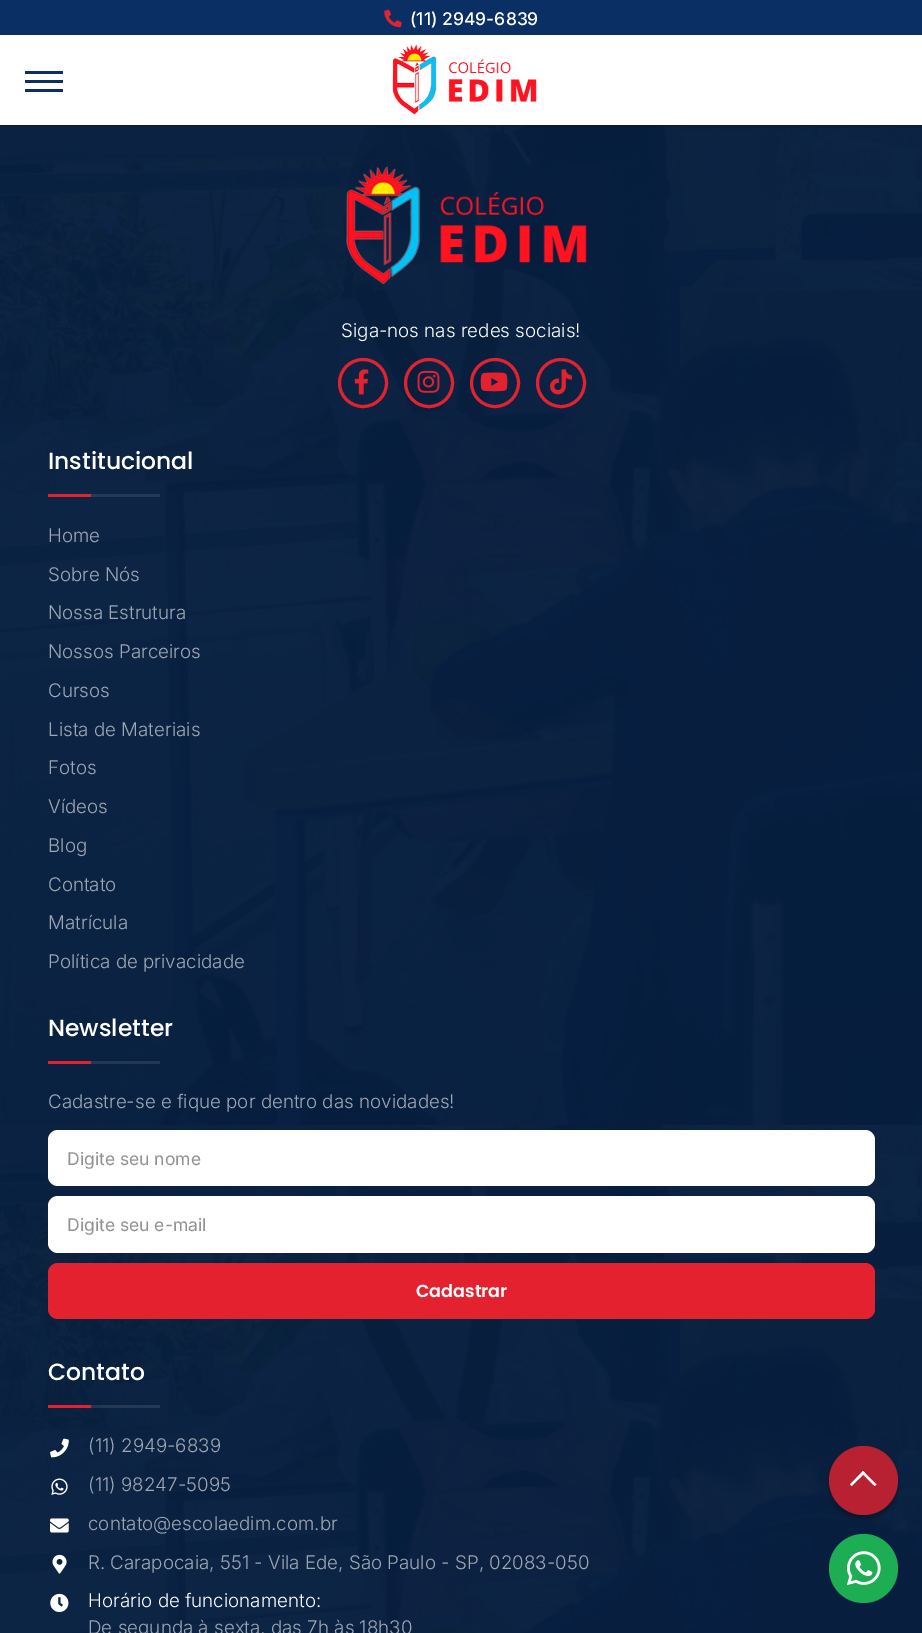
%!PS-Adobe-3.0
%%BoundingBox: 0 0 922 1633
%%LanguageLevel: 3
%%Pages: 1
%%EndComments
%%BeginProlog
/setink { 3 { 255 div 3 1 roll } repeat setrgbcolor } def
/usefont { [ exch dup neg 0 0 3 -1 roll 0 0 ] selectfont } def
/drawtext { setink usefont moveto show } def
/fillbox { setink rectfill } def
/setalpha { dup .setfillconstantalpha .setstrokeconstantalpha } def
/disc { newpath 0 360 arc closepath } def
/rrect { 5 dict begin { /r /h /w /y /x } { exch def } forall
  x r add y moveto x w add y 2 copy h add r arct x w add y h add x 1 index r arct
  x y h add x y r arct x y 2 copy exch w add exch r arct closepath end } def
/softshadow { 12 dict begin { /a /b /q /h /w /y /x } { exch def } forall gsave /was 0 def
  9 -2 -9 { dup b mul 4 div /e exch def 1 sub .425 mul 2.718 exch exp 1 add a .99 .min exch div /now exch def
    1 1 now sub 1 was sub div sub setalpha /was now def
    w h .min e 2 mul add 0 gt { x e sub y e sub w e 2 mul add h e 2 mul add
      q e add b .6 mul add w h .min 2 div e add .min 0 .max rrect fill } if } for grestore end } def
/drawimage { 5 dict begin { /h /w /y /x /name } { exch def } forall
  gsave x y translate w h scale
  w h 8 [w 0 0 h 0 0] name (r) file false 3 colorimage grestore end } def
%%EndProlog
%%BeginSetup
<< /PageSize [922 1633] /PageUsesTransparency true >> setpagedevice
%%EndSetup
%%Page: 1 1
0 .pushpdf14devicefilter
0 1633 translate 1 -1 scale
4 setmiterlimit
0 0 922 1633 255 255 255 fillbox
(assets/img3.rgb) 0 125 922 1508 drawimage
0 0 0 setink
0 1 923 125 0 2 0.26 softshadow
0 35 922 90 255 255 255 fillbox
0 0 922 35 10 47 100 fillbox
(assets/img1.rgb) 384 9 18 19 drawimage
(\(11\) 2949-6839) 410 25 /Inter-Medium 17.5 255 255 255 drawtext
25 71 38 3 10 47 100 fillbox
25 80 38 3 10 47 100 fillbox
25 89 38 3 10 47 100 fillbox
(assets/img2.rgb) 392 44 145 71 drawimage
(assets/img4.rgb) 346 166 241 119 drawimage
(Siga-nos nas redes sociais!) 341 337 /Inter-Light 18.75 255 255 255 drawtext
228 33 46 setink
3 setlinewidth
363 383 23.5 disc stroke
(assets/img5.rgb) 354 369 15 26 drawimage
429 383 23.5 disc stroke
(assets/img6.rgb) 417 370 23 23 drawimage
495 383 23.5 disc stroke
(assets/img7.rgb) 480 372 28 20 drawimage
561 383 23.5 disc stroke
(assets/img8.rgb) 550 369 22 26 drawimage
(Institucional) 48 469 /Poppins-Medium 23.5 255 255 255 drawtext
48 494 43 3 228 33 46 fillbox
91 494 69 3 37 58 87 fillbox
(Home) 48 542 /Inter-Light 18.75 158 167 180 drawtext
(Sobre Nós) 48 581 /Inter-Light 18.75 158 167 180 drawtext
(Nossa Estrutura) 48 619 /Inter-Light 18.75 158 167 180 drawtext
(Nossos Parceiros) 48 658 /Inter-Light 18.75 158 167 180 drawtext
(Cursos) 48 697 /Inter-Light 18.75 158 167 180 drawtext
(Lista de Materiais) 48 736 /Inter-Light 18.75 158 167 180 drawtext
(Fotos) 48 774 /Inter-Light 18.75 158 167 180 drawtext
(Vídeos) 48 813 /Inter-Light 18.75 158 167 180 drawtext
(Blog) 48 852 /Inter-Light 18.75 158 167 180 drawtext
(Contato) 48 891 /Inter-Light 18.75 158 167 180 drawtext
(Matrícula) 48 929 /Inter-Light 18.75 158 167 180 drawtext
(Política de privacidade) 48 968 /Inter-Light 18.75 158 167 180 drawtext
(Newsletter) 48 1036 /Poppins-Medium 23.5 255 255 255 drawtext
48 1061 43 3 228 33 46 fillbox
91 1061 69 3 35 56 85 fillbox
(Cadastre-se e fique por dentro das novidades!) 48 1108 /Inter-Light 18.75 158 167 180 drawtext
255 255 255 setink
48 1130 827 56 10 rrect fill
(Digite seu nome) 67 1165 /Inter-Regular 17.5 146 146 146 drawtext
255 255 255 setink
48 1196 827 57 10 rrect fill
(Digite seu e-mail) 67 1231 /Inter-Regular 17.5 146 146 146 drawtext
228 33 46 setink
48 1263 827 56 10 rrect fill
(Cadastrar) 416 1297 /Poppins-SemiBold 17.5 255 255 255 drawtext
(Contato) 48 1380 /Poppins-Medium 23.5 255 255 255 drawtext
48 1405 43 3 228 33 46 fillbox
0.1 setalpha
91 1405 69 3 255 255 255 fillbox
1 setalpha
(assets/img9.rgb) 50 1438 19 20 drawimage
(\(11\) 2949-6839) 88 1452 /Inter-Light 18.75 158 167 180 drawtext
(assets/img10.rgb) 51 1478 17 17 drawimage
(\(11\) 98247-5095) 88 1491 /Inter-Light 18.75 158 167 180 drawtext
(assets/img11.rgb) 50 1518 19 15 drawimage
(contato@escolaedim.com.br) 88 1530 /Inter-Light 18.75 158 167 180 drawtext
(assets/img12.rgb) 52 1554 15 20 drawimage
(R. Carapocaia, 551 - Vila Ede, São Paulo - SP, 02083-050) 88 1569 /Inter-Light 18.75 158 167 180 drawtext
(assets/img13.rgb) 50 1593 19 20 drawimage
(Horário de funcionamento:) 88 1607 /Inter-Light 18.75 255 255 255 drawtext
(De segunda à sexta, das 7h às 18h30) 88 1634 /Inter-Light 18.75 158 167 180 drawtext
gsave
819 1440 moveto 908 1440 lineto 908 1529 lineto 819 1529 lineto closepath 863.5 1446 moveto 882.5 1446 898 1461.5 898 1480.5 curveto 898 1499.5 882.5 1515 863.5 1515 curveto 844.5 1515 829 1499.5 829 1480.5 curveto 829 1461.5 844.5 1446 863.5 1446 curveto closepath eoclip newpath
0 0 0 setink
829 1450 69 69 34.5 3 0.3 softshadow
grestore
0.8 setalpha
228 33 46 setink
863.5 1480.5 34.5 disc fill
1 setalpha
255 255 255 setink
863 1471 moveto 876.5 1484.5 lineto 874.5 1486 lineto 861.5 1473 lineto closepath fill
863 1471 moveto 865 1473 lineto 851.5 1486 lineto 850 1484.5 lineto closepath fill
29 174 83 setink
863.5 1568.5 34.5 disc fill
(assets/img14.rgb) 847 1551 34 34 drawimage
.poppdf14devicefilter showpage
%%EOF
